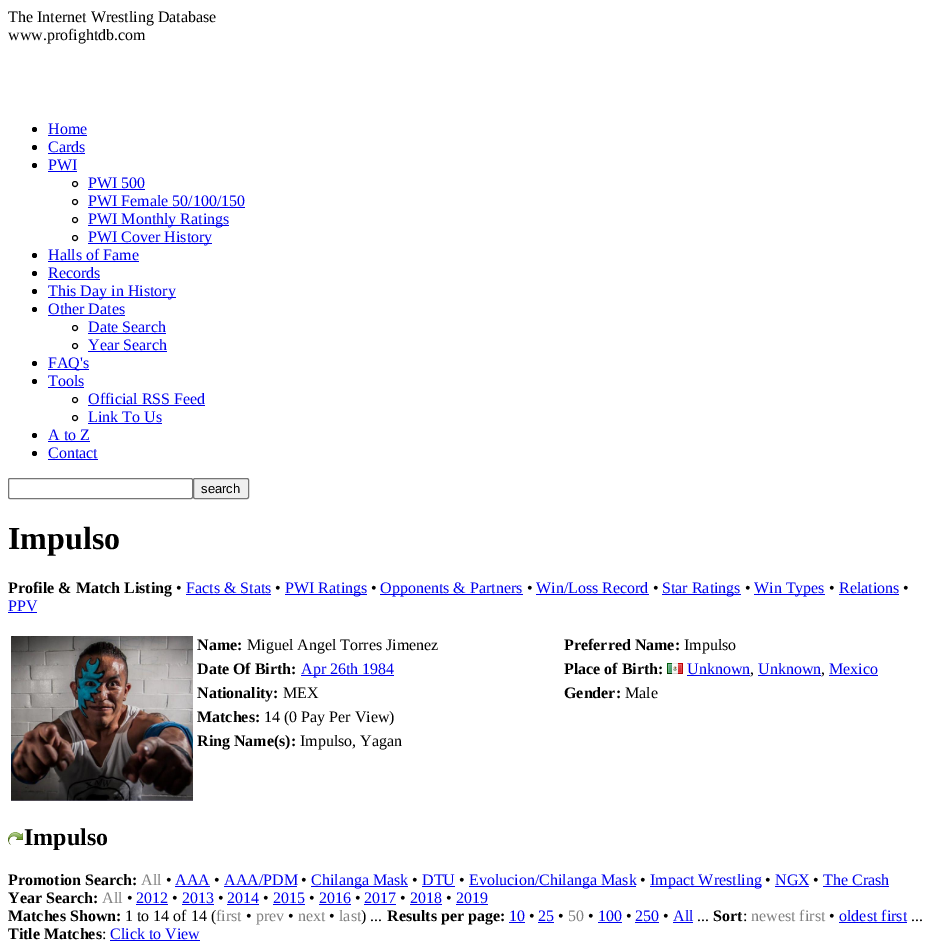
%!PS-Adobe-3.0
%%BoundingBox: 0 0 937 948
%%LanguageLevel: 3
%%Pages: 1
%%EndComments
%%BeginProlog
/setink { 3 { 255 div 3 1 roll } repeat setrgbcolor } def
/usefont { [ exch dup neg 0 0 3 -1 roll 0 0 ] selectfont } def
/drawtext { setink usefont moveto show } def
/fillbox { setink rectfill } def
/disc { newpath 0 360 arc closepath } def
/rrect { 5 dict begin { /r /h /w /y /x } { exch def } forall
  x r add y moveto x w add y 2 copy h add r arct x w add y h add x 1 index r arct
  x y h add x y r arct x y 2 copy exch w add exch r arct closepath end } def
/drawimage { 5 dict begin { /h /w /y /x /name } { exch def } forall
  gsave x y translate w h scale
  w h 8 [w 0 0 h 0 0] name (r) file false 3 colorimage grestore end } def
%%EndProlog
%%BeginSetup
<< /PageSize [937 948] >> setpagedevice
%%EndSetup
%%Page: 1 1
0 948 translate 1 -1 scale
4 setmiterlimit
0 0 937 948 255 255 255 fillbox
(The Internet Wrestling Database) 8 22 /LiberationSerif-Regular 16 0 0 0 drawtext
(www.profightdb.com) 8 40 /LiberationSerif-Regular 16 0 0 0 drawtext
34.5 129.5 2.5 disc fill
(Home) 48 134 /LiberationSerif-Regular 16 0 0 238 drawtext
48 135 39 1 0 0 238 fillbox
0 0 0 setink
34.5 147.5 2.5 disc fill
(Cards) 48 152 /LiberationSerif-Regular 16 0 0 238 drawtext
48 153 37 1 0 0 238 fillbox
0 0 0 setink
34.5 165.5 2.5 disc fill
(PWI) 48 170 /LiberationSerif-Regular 16 0 0 238 drawtext
48 171 29 1 0 0 238 fillbox
0 0 0 setink
75 184 2.5 disc stroke
(PWI 500) 88 188 /LiberationSerif-Regular 16 0 0 238 drawtext
88 189 57 1 0 0 238 fillbox
0 0 0 setink
75 202 2.5 disc stroke
(PWI Female 50/100/150) 88 206 /LiberationSerif-Regular 16 0 0 238 drawtext
88 207 157 1 0 0 238 fillbox
0 0 0 setink
75 220 2.5 disc stroke
88 225 141 1 0 0 238 fillbox
(PWI Monthly Ratings) 88 224 /LiberationSerif-Regular 16 0 0 238 drawtext
0 0 0 setink
75 238 2.5 disc stroke
88 243 124 1 0 0 238 fillbox
(PWI Cover History) 88 242 /LiberationSerif-Regular 16 0 0 238 drawtext
0 0 0 setink
34.5 255.5 2.5 disc fill
(Halls of Fame) 48 260 /LiberationSerif-Regular 16 0 0 238 drawtext
48 261 91 1 0 0 238 fillbox
0 0 0 setink
34.5 273.5 2.5 disc fill
(Records) 48 278 /LiberationSerif-Regular 16 0 0 238 drawtext
48 279 52 1 0 0 238 fillbox
0 0 0 setink
34.5 291.5 2.5 disc fill
48 297 128 1 0 0 238 fillbox
(This Day in History) 48 296 /LiberationSerif-Regular 16 0 0 238 drawtext
0 0 0 setink
34.5 309.5 2.5 disc fill
(Other Dates) 48 314 /LiberationSerif-Regular 16 0 0 238 drawtext
48 315 77 1 0 0 238 fillbox
0 0 0 setink
75 328 2.5 disc stroke
(Date Search) 88 332 /LiberationSerif-Regular 16 0 0 238 drawtext
88 333 78 1 0 0 238 fillbox
0 0 0 setink
75 346 2.5 disc stroke
(Year Search) 88 350 /LiberationSerif-Regular 16 0 0 238 drawtext
88 351 79 1 0 0 238 fillbox
0 0 0 setink
34.5 363.5 2.5 disc fill
48 369 41 1 0 0 238 fillbox
(FAQ's) 48 368 /LiberationSerif-Regular 16 0 0 238 drawtext
0 0 0 setink
34.5 381.5 2.5 disc fill
(Tools) 48 386 /LiberationSerif-Regular 16 0 0 238 drawtext
48 387 36 1 0 0 238 fillbox
0 0 0 setink
75 400 2.5 disc stroke
(Official RSS Feed) 88 404 /LiberationSerif-Regular 16 0 0 238 drawtext
88 405 117 1 0 0 238 fillbox
0 0 0 setink
75 418 2.5 disc stroke
(Link To Us) 88 422 /LiberationSerif-Regular 16 0 0 238 drawtext
88 423 74 1 0 0 238 fillbox
0 0 0 setink
34.5 435.5 2.5 disc fill
(A to Z) 48 440 /LiberationSerif-Regular 16 0 0 238 drawtext
48 441 42 1 0 0 238 fillbox
0 0 0 setink
34.5 453.5 2.5 disc fill
(Contact) 48 458 /LiberationSerif-Regular 16 0 0 238 drawtext
48 459 50 1 0 0 238 fillbox
118 118 118 setink
8.5 478.5 184 20 1.5 rrect stroke
239 239 239 setink
193.5 478.5 55 20 1.5 rrect gsave fill grestore
118 118 118 setink
stroke
(search) 201 493 /LiberationSans-Regular 13 0 0 0 drawtext
(Impulso) 8 549 /LiberationSerif-Bold 32 0 0 0 drawtext
(Profile & Match Listing) 8 593 /LiberationSerif-Bold 16 0 0 0 drawtext
(•) 176 593 /LiberationSerif-Regular 16 0 0 0 drawtext
(Facts & Stats) 186 593 /LiberationSerif-Regular 16 0 0 238 drawtext
186 594 85 1 0 0 238 fillbox
(•) 275 593 /LiberationSerif-Regular 16 0 0 0 drawtext
285 594 82 1 0 0 238 fillbox
(PWI Ratings) 285 593 /LiberationSerif-Regular 16 0 0 238 drawtext
(•) 371 593 /LiberationSerif-Regular 16 0 0 0 drawtext
380 594 143 1 0 0 238 fillbox
(Opponents & Partners) 380 593 /LiberationSerif-Regular 16 0 0 238 drawtext
(•) 527 593 /LiberationSerif-Regular 16 0 0 0 drawtext
(Win/Loss Record) 536 593 /LiberationSerif-Regular 16 0 0 238 drawtext
536 594 113 1 0 0 238 fillbox
(•) 653 593 /LiberationSerif-Regular 16 0 0 0 drawtext
662 594 79 1 0 0 238 fillbox
(Star Ratings) 662 593 /LiberationSerif-Regular 16 0 0 238 drawtext
(•) 745 593 /LiberationSerif-Regular 16 0 0 0 drawtext
754 594 71 1 0 0 238 fillbox
(Win Types) 754 593 /LiberationSerif-Regular 16 0 0 238 drawtext
(•) 829 593 /LiberationSerif-Regular 16 0 0 0 drawtext
(Relations) 839 593 /LiberationSerif-Regular 16 0 0 238 drawtext
839 594 60 1 0 0 238 fillbox
(•) 903 593 /LiberationSerif-Regular 16 0 0 0 drawtext
(PPV) 8 611 /LiberationSerif-Regular 16 0 0 238 drawtext
8 612 29 1 0 0 238 fillbox
(assets/img1.rgb) 11 636 182 165 drawimage
(Name:) 197 650 /LiberationSerif-Bold 16 0 0 0 drawtext
(Miguel Angel Torres Jimenez) 247 650 /LiberationSerif-Regular 16 0 0 0 drawtext
(Preferred Name:) 564 650 /LiberationSerif-Bold 16 0 0 0 drawtext
(Impulso) 684 650 /LiberationSerif-Regular 16 0 0 0 drawtext
(Date Of Birth:) 197 674 /LiberationSerif-Bold 16 0 0 0 drawtext
301 675 93 1 0 0 238 fillbox
(Apr 26th 1984) 301 674 /LiberationSerif-Regular 16 0 0 238 drawtext
(Place of Birth:) 564 674 /LiberationSerif-Bold 16 0 0 0 drawtext
(assets/img2.rgb) 667 663 16 11 drawimage
(Unknown) 687 674 /LiberationSerif-Regular 16 0 0 238 drawtext
687 675 63 1 0 0 238 fillbox
(,) 750 674 /LiberationSerif-Regular 16 0 0 0 drawtext
(Unknown) 758 674 /LiberationSerif-Regular 16 0 0 238 drawtext
758 675 63 1 0 0 238 fillbox
(,) 821 674 /LiberationSerif-Regular 16 0 0 0 drawtext
(Mexico) 829 674 /LiberationSerif-Regular 16 0 0 238 drawtext
829 675 49 1 0 0 238 fillbox
(Nationality:) 197 698 /LiberationSerif-Bold 16 0 0 0 drawtext
(MEX) 283 698 /LiberationSerif-Regular 16 0 0 0 drawtext
(Gender:) 564 698 /LiberationSerif-Bold 16 0 0 0 drawtext
(Male) 625 698 /LiberationSerif-Regular 16 0 0 0 drawtext
(Matches:) 197 722 /LiberationSerif-Bold 16 0 0 0 drawtext
(14 \(0 Pay Per View\)) 264 722 /LiberationSerif-Regular 16 0 0 0 drawtext
(Ring Name\(s\):) 197 746 /LiberationSerif-Bold 16 0 0 0 drawtext
(Impulso, Yagan) 300 746 /LiberationSerif-Regular 16 0 0 0 drawtext
(assets/img3.rgb) 8 832 15 13 drawimage
(Impulso) 24 845 /LiberationSerif-Bold 24 0 0 0 drawtext
(Promotion Search:) 8 885 /LiberationSerif-Bold 16 0 0 0 drawtext
(All) 141 885 /LiberationSerif-Regular 16 128 128 128 drawtext
(•) 166 885 /LiberationSerif-Regular 16 0 0 0 drawtext
(AAA) 175 885 /LiberationSerif-Regular 16 0 0 238 drawtext
175 886 35 1 0 0 238 fillbox
(•) 214 885 /LiberationSerif-Regular 16 0 0 0 drawtext
(AAA/PDM) 224 885 /LiberationSerif-Regular 16 0 0 238 drawtext
224 886 73 1 0 0 238 fillbox
(•) 301 885 /LiberationSerif-Regular 16 0 0 0 drawtext
311 886 97 1 0 0 238 fillbox
(Chilanga Mask) 311 885 /LiberationSerif-Regular 16 0 0 238 drawtext
(•) 412 885 /LiberationSerif-Regular 16 0 0 0 drawtext
(DTU) 422 885 /LiberationSerif-Regular 16 0 0 238 drawtext
422 886 33 1 0 0 238 fillbox
(•) 459 885 /LiberationSerif-Regular 16 0 0 0 drawtext
469 886 167 1 0 0 238 fillbox
(Evolucion/Chilanga Mask) 469 885 /LiberationSerif-Regular 16 0 0 238 drawtext
(•) 640 885 /LiberationSerif-Regular 16 0 0 0 drawtext
650 886 111 1 0 0 238 fillbox
(Impact Wrestling) 650 885 /LiberationSerif-Regular 16 0 0 238 drawtext
(•) 765 885 /LiberationSerif-Regular 16 0 0 0 drawtext
(NGX) 775 885 /LiberationSerif-Regular 16 0 0 238 drawtext
775 886 34 1 0 0 238 fillbox
(•) 813 885 /LiberationSerif-Regular 16 0 0 0 drawtext
(The Crash) 823 885 /LiberationSerif-Regular 16 0 0 238 drawtext
823 886 66 1 0 0 238 fillbox
(Year Search:) 8 903 /LiberationSerif-Bold 16 0 0 0 drawtext
(All) 102 903 /LiberationSerif-Regular 16 128 128 128 drawtext
(•) 127 903 /LiberationSerif-Regular 16 0 0 0 drawtext
(2012) 136 903 /LiberationSerif-Regular 16 0 0 238 drawtext
136 904 32 1 0 0 238 fillbox
(•) 172 903 /LiberationSerif-Regular 16 0 0 0 drawtext
(2013) 182 903 /LiberationSerif-Regular 16 0 0 238 drawtext
182 904 32 1 0 0 238 fillbox
(•) 218 903 /LiberationSerif-Regular 16 0 0 0 drawtext
(2014) 227 903 /LiberationSerif-Regular 16 0 0 238 drawtext
227 904 32 1 0 0 238 fillbox
(•) 263 903 /LiberationSerif-Regular 16 0 0 0 drawtext
(2015) 273 903 /LiberationSerif-Regular 16 0 0 238 drawtext
273 904 32 1 0 0 238 fillbox
(•) 309 903 /LiberationSerif-Regular 16 0 0 0 drawtext
(2016) 319 903 /LiberationSerif-Regular 16 0 0 238 drawtext
319 904 32 1 0 0 238 fillbox
(•) 355 903 /LiberationSerif-Regular 16 0 0 0 drawtext
(2017) 364 903 /LiberationSerif-Regular 16 0 0 238 drawtext
364 904 32 1 0 0 238 fillbox
(•) 400 903 /LiberationSerif-Regular 16 0 0 0 drawtext
(2018) 410 903 /LiberationSerif-Regular 16 0 0 238 drawtext
410 904 32 1 0 0 238 fillbox
(•) 446 903 /LiberationSerif-Regular 16 0 0 0 drawtext
(2019) 456 903 /LiberationSerif-Regular 16 0 0 238 drawtext
456 904 32 1 0 0 238 fillbox
(Matches Shown:) 8 921 /LiberationSerif-Bold 16 0 0 0 drawtext
(1 to 14 of 14 \() 125 921 /LiberationSerif-Regular 16 0 0 0 drawtext
(first) 216 921 /LiberationSerif-Regular 16 128 128 128 drawtext
(•) 246 921 /LiberationSerif-Regular 16 0 0 0 drawtext
(prev) 256 921 /LiberationSerif-Regular 16 128 128 128 drawtext
(•) 288 921 /LiberationSerif-Regular 16 0 0 0 drawtext
(next) 298 921 /LiberationSerif-Regular 16 128 128 128 drawtext
(•) 329 921 /LiberationSerif-Regular 16 0 0 0 drawtext
(last) 339 921 /LiberationSerif-Regular 16 128 128 128 drawtext
(\) ...) 361 921 /LiberationSerif-Regular 16 0 0 0 drawtext
(Results per page:) 387 921 /LiberationSerif-Bold 16 0 0 0 drawtext
(10) 509 921 /LiberationSerif-Regular 16 0 0 238 drawtext
509 922 16 1 0 0 238 fillbox
(•) 529 921 /LiberationSerif-Regular 16 0 0 0 drawtext
(25) 538 921 /LiberationSerif-Regular 16 0 0 238 drawtext
538 922 16 1 0 0 238 fillbox
(•) 558 921 /LiberationSerif-Regular 16 0 0 0 drawtext
(50) 568 921 /LiberationSerif-Regular 16 128 128 128 drawtext
(•) 588 921 /LiberationSerif-Regular 16 0 0 0 drawtext
(100) 598 921 /LiberationSerif-Regular 16 0 0 238 drawtext
598 922 24 1 0 0 238 fillbox
(•) 626 921 /LiberationSerif-Regular 16 0 0 0 drawtext
(250) 635 921 /LiberationSerif-Regular 16 0 0 238 drawtext
635 922 24 1 0 0 238 fillbox
(•) 663 921 /LiberationSerif-Regular 16 0 0 0 drawtext
(All) 673 921 /LiberationSerif-Regular 16 0 0 238 drawtext
673 922 20 1 0 0 238 fillbox
(Sort) 713 921 /LiberationSerif-Bold 16 0 0 0 drawtext
(:) 743 921 /LiberationSerif-Regular 16 0 0 0 drawtext
(newest first) 751 921 /LiberationSerif-Regular 16 128 128 128 drawtext
(•) 829 921 /LiberationSerif-Regular 16 0 0 0 drawtext
(oldest first) 839 921 /LiberationSerif-Regular 16 0 0 238 drawtext
839 922 68 1 0 0 238 fillbox
(...) 697 921 /LiberationSerif-Regular 16 0 0 0 drawtext
(...) 911 921 /LiberationSerif-Regular 16 0 0 0 drawtext
(Title Matches) 8 939 /LiberationSerif-Bold 16 0 0 0 drawtext
(:) 102 939 /LiberationSerif-Regular 16 0 0 0 drawtext
(Click to View) 110 939 /LiberationSerif-Regular 16 0 0 238 drawtext
110 940 90 1 0 0 238 fillbox
showpage
%%EOF
